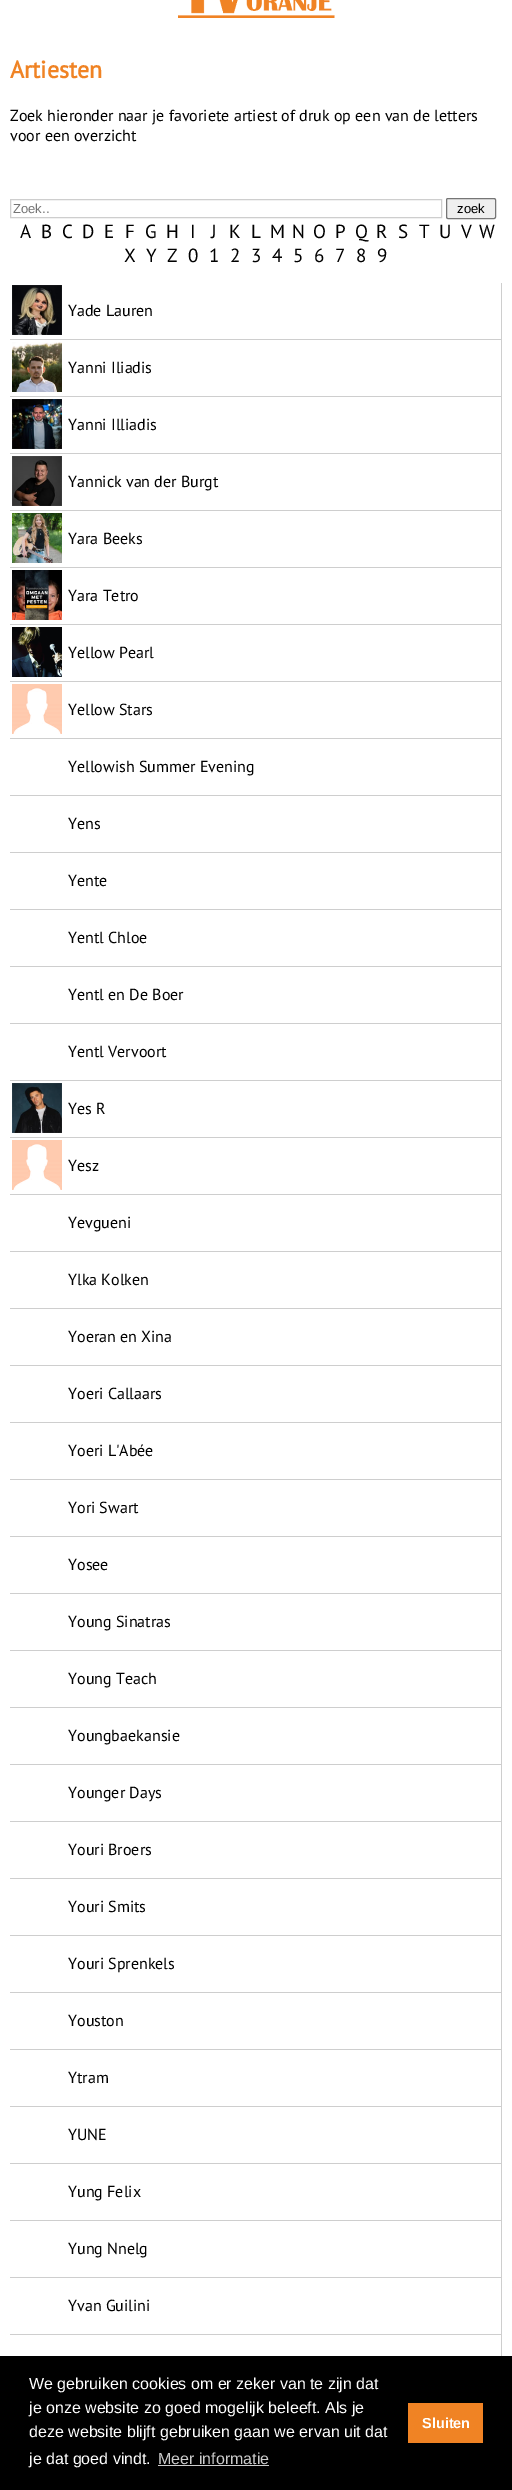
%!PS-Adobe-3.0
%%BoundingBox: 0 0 512 2490
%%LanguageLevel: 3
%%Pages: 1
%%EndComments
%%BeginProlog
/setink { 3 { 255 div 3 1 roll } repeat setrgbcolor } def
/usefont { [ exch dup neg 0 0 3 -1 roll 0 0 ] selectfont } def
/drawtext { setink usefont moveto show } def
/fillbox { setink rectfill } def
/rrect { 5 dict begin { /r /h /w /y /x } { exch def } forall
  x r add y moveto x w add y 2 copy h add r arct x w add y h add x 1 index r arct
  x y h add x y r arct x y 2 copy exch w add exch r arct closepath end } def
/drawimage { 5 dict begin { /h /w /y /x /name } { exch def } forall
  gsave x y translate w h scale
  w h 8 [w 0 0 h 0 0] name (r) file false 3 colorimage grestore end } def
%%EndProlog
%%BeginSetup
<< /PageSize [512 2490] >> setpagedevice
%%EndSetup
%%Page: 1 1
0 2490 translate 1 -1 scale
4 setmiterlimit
0 0 512 2490 255 255 255 fillbox
(assets/img1.rgb) 178 0 157 18 drawimage
(Artiesten) 10 78 /PTSans-Bold 24 240 131 36 drawtext
(Zoek hieronder naar je favoriete artiest of druk op een van de letters) 10 121 /PTSans-Regular 16 0 0 0 drawtext
(voor een overzicht) 10 141 /PTSans-Regular 16 0 0 0 drawtext
206 206 206 setink
10.5 199.5 431 18 rectstroke
(Zoek..) 13 213 /LiberationSans-Regular 13 117 117 117 drawtext
239 239 239 setink
446.5 198.5 49 20 1.5 rrect gsave fill grestore
118 118 118 setink
stroke
(zoek) 457 213 /LiberationSans-Regular 13 0 0 0 drawtext
(A) 20 238 /PTSans-Regular 19 0 0 0 drawtext
(B) 41 238 /PTSans-Regular 19 0 0 0 drawtext
(C) 62 238 /PTSans-Regular 19 0 0 0 drawtext
(D) 82 238 /PTSans-Regular 19 0 0 0 drawtext
(E) 104 238 /PTSans-Regular 19 0 0 0 drawtext
(F) 125 238 /PTSans-Regular 19 0 0 0 drawtext
(G) 145 238 /PTSans-Regular 19 0 0 0 drawtext
(H) 166 238 /PTSans-Regular 19 0 0 0 drawtext
(I) 190 238 /PTSans-Regular 19 0 0 0 drawtext
(J) 211 238 /PTSans-Regular 19 0 0 0 drawtext
(K) 229 238 /PTSans-Regular 19 0 0 0 drawtext
(L) 251 238 /PTSans-Regular 19 0 0 0 drawtext
(M) 270 238 /PTSans-Regular 19 0 0 0 drawtext
(N) 292 238 /PTSans-Regular 19 0 0 0 drawtext
(O) 313 238 /PTSans-Regular 19 0 0 0 drawtext
(P) 335 238 /PTSans-Regular 19 0 0 0 drawtext
(Q) 355 238 /PTSans-Regular 19 0 0 0 drawtext
(R) 376 238 /PTSans-Regular 19 0 0 0 drawtext
(S) 398 238 /PTSans-Regular 19 0 0 0 drawtext
(T) 419 238 /PTSans-Regular 19 0 0 0 drawtext
(U) 439 238 /PTSans-Regular 19 0 0 0 drawtext
(V) 461 238 /PTSans-Regular 19 0 0 0 drawtext
(W) 479 238 /PTSans-Regular 19 0 0 0 drawtext
(X) 124 262 /PTSans-Regular 19 0 0 0 drawtext
(Y) 146 262 /PTSans-Regular 19 0 0 0 drawtext
(Z) 167 262 /PTSans-Regular 19 0 0 0 drawtext
(0) 188 262 /PTSans-Regular 19 0 0 0 drawtext
(1) 209 262 /PTSans-Regular 19 0 0 0 drawtext
(2) 230 262 /PTSans-Regular 19 0 0 0 drawtext
(3) 251 262 /PTSans-Regular 19 0 0 0 drawtext
(4) 272 262 /PTSans-Regular 19 0 0 0 drawtext
(5) 293 262 /PTSans-Regular 19 0 0 0 drawtext
(6) 314 262 /PTSans-Regular 19 0 0 0 drawtext
(7) 335 262 /PTSans-Regular 19 0 0 0 drawtext
(8) 356 262 /PTSans-Regular 19 0 0 0 drawtext
(9) 377 262 /PTSans-Regular 19 0 0 0 drawtext
501 283 1 2073 206 206 206 fillbox
10 339 492 1 206 206 206 fillbox
(assets/img2.rgb) 12 285 50 50 drawimage
(Yade Lauren) 68 316 /PTSans-Regular 16 0 0 0 drawtext
10 396 492 1 206 206 206 fillbox
(assets/img3.rgb) 12 342 50 50 drawimage
(Yanni Iliadis) 68 373 /PTSans-Regular 16 0 0 0 drawtext
10 453 492 1 206 206 206 fillbox
(assets/img4.rgb) 12 399 50 50 drawimage
(Yanni Illiadis) 68 430 /PTSans-Regular 16 0 0 0 drawtext
10 510 492 1 206 206 206 fillbox
(assets/img5.rgb) 12 456 50 50 drawimage
(Yannick van der Burgt) 68 487 /PTSans-Regular 16 0 0 0 drawtext
10 567 492 1 206 206 206 fillbox
(assets/img6.rgb) 12 513 50 50 drawimage
(Yara Beeks) 68 544 /PTSans-Regular 16 0 0 0 drawtext
10 624 492 1 206 206 206 fillbox
(assets/img7.rgb) 12 570 50 50 drawimage
(Yara Tetro) 68 601 /PTSans-Regular 16 0 0 0 drawtext
10 681 492 1 206 206 206 fillbox
(assets/img8.rgb) 12 627 50 50 drawimage
(Yellow Pearl) 68 658 /PTSans-Regular 16 0 0 0 drawtext
10 738 492 1 206 206 206 fillbox
(assets/img9.rgb) 12 684 50 50 drawimage
(Yellow Stars) 68 715 /PTSans-Regular 16 0 0 0 drawtext
10 795 492 1 206 206 206 fillbox
(Yellowish Summer Evening) 68 772 /PTSans-Regular 16 0 0 0 drawtext
10 852 492 1 206 206 206 fillbox
(Yens) 68 829 /PTSans-Regular 16 0 0 0 drawtext
10 909 492 1 206 206 206 fillbox
(Yente) 68 886 /PTSans-Regular 16 0 0 0 drawtext
10 966 492 1 206 206 206 fillbox
(Yentl Chloe) 68 943 /PTSans-Regular 16 0 0 0 drawtext
10 1023 492 1 206 206 206 fillbox
(Yentl en De Boer) 68 1000 /PTSans-Regular 16 0 0 0 drawtext
10 1080 492 1 206 206 206 fillbox
(Yentl Vervoort) 68 1057 /PTSans-Regular 16 0 0 0 drawtext
10 1137 492 1 206 206 206 fillbox
(assets/img10.rgb) 12 1083 50 50 drawimage
(Yes R) 68 1114 /PTSans-Regular 16 0 0 0 drawtext
10 1194 492 1 206 206 206 fillbox
(assets/img9.rgb) 12 1140 50 50 drawimage
(Yesz) 68 1171 /PTSans-Regular 16 0 0 0 drawtext
10 1251 492 1 206 206 206 fillbox
(Yevgueni) 68 1228 /PTSans-Regular 16 0 0 0 drawtext
10 1308 492 1 206 206 206 fillbox
(Ylka Kolken) 68 1285 /PTSans-Regular 16 0 0 0 drawtext
10 1365 492 1 206 206 206 fillbox
(Yoeran en Xina) 68 1342 /PTSans-Regular 16 0 0 0 drawtext
10 1422 492 1 206 206 206 fillbox
(Yoeri Callaars) 68 1399 /PTSans-Regular 16 0 0 0 drawtext
10 1479 492 1 206 206 206 fillbox
(Yoeri L'Abée) 68 1456 /PTSans-Regular 16 0 0 0 drawtext
10 1536 492 1 206 206 206 fillbox
(Yori Swart) 68 1513 /PTSans-Regular 16 0 0 0 drawtext
10 1593 492 1 206 206 206 fillbox
(Yosee) 68 1570 /PTSans-Regular 16 0 0 0 drawtext
10 1650 492 1 206 206 206 fillbox
(Young Sinatras) 68 1627 /PTSans-Regular 16 0 0 0 drawtext
10 1707 492 1 206 206 206 fillbox
(Young Teach) 68 1684 /PTSans-Regular 16 0 0 0 drawtext
10 1764 492 1 206 206 206 fillbox
(Youngbaekansie) 68 1741 /PTSans-Regular 16 0 0 0 drawtext
10 1821 492 1 206 206 206 fillbox
(Younger Days) 68 1798 /PTSans-Regular 16 0 0 0 drawtext
10 1878 492 1 206 206 206 fillbox
(Youri Broers) 68 1855 /PTSans-Regular 16 0 0 0 drawtext
10 1935 492 1 206 206 206 fillbox
(Youri Smits) 68 1912 /PTSans-Regular 16 0 0 0 drawtext
10 1992 492 1 206 206 206 fillbox
(Youri Sprenkels) 68 1969 /PTSans-Regular 16 0 0 0 drawtext
10 2049 492 1 206 206 206 fillbox
(Youston) 68 2026 /PTSans-Regular 16 0 0 0 drawtext
10 2106 492 1 206 206 206 fillbox
(Ytram) 68 2083 /PTSans-Regular 16 0 0 0 drawtext
10 2163 492 1 206 206 206 fillbox
(YUNE) 68 2140 /PTSans-Regular 16 0 0 0 drawtext
10 2220 492 1 206 206 206 fillbox
(Yung Felix) 68 2197 /PTSans-Regular 16 0 0 0 drawtext
10 2277 492 1 206 206 206 fillbox
(Yung Nnelg) 68 2254 /PTSans-Regular 16 0 0 0 drawtext
10 2334 492 1 206 206 206 fillbox
(Yvan Guilini) 68 2311 /PTSans-Regular 16 0 0 0 drawtext
0 2356 512 134 0 0 0 fillbox
(We gebruiken cookies om er zeker van te zijn dat) 29 2389 /LiberationSans-Regular 16 255 255 255 drawtext
(je onze website zo goed mogelijk beleeft. Als je) 29 2413 /LiberationSans-Regular 16 255 255 255 drawtext
(deze website blijft gebruiken gaan we ervan uit dat) 29 2437 /LiberationSans-Regular 16 255 255 255 drawtext
(je dat goed vindt.) 29 2464 /LiberationSans-Regular 16 255 255 255 drawtext
(Meer informatie) 158 2464 /LiberationSans-Regular 16 204 204 204 drawtext
158 2465 111 1 204 204 204 fillbox
408 2403 75 40 240 131 36 fillbox
(Sluiten) 422 2428 /LiberationSans-Bold 14.5 255 255 255 drawtext
showpage
%%EOF
